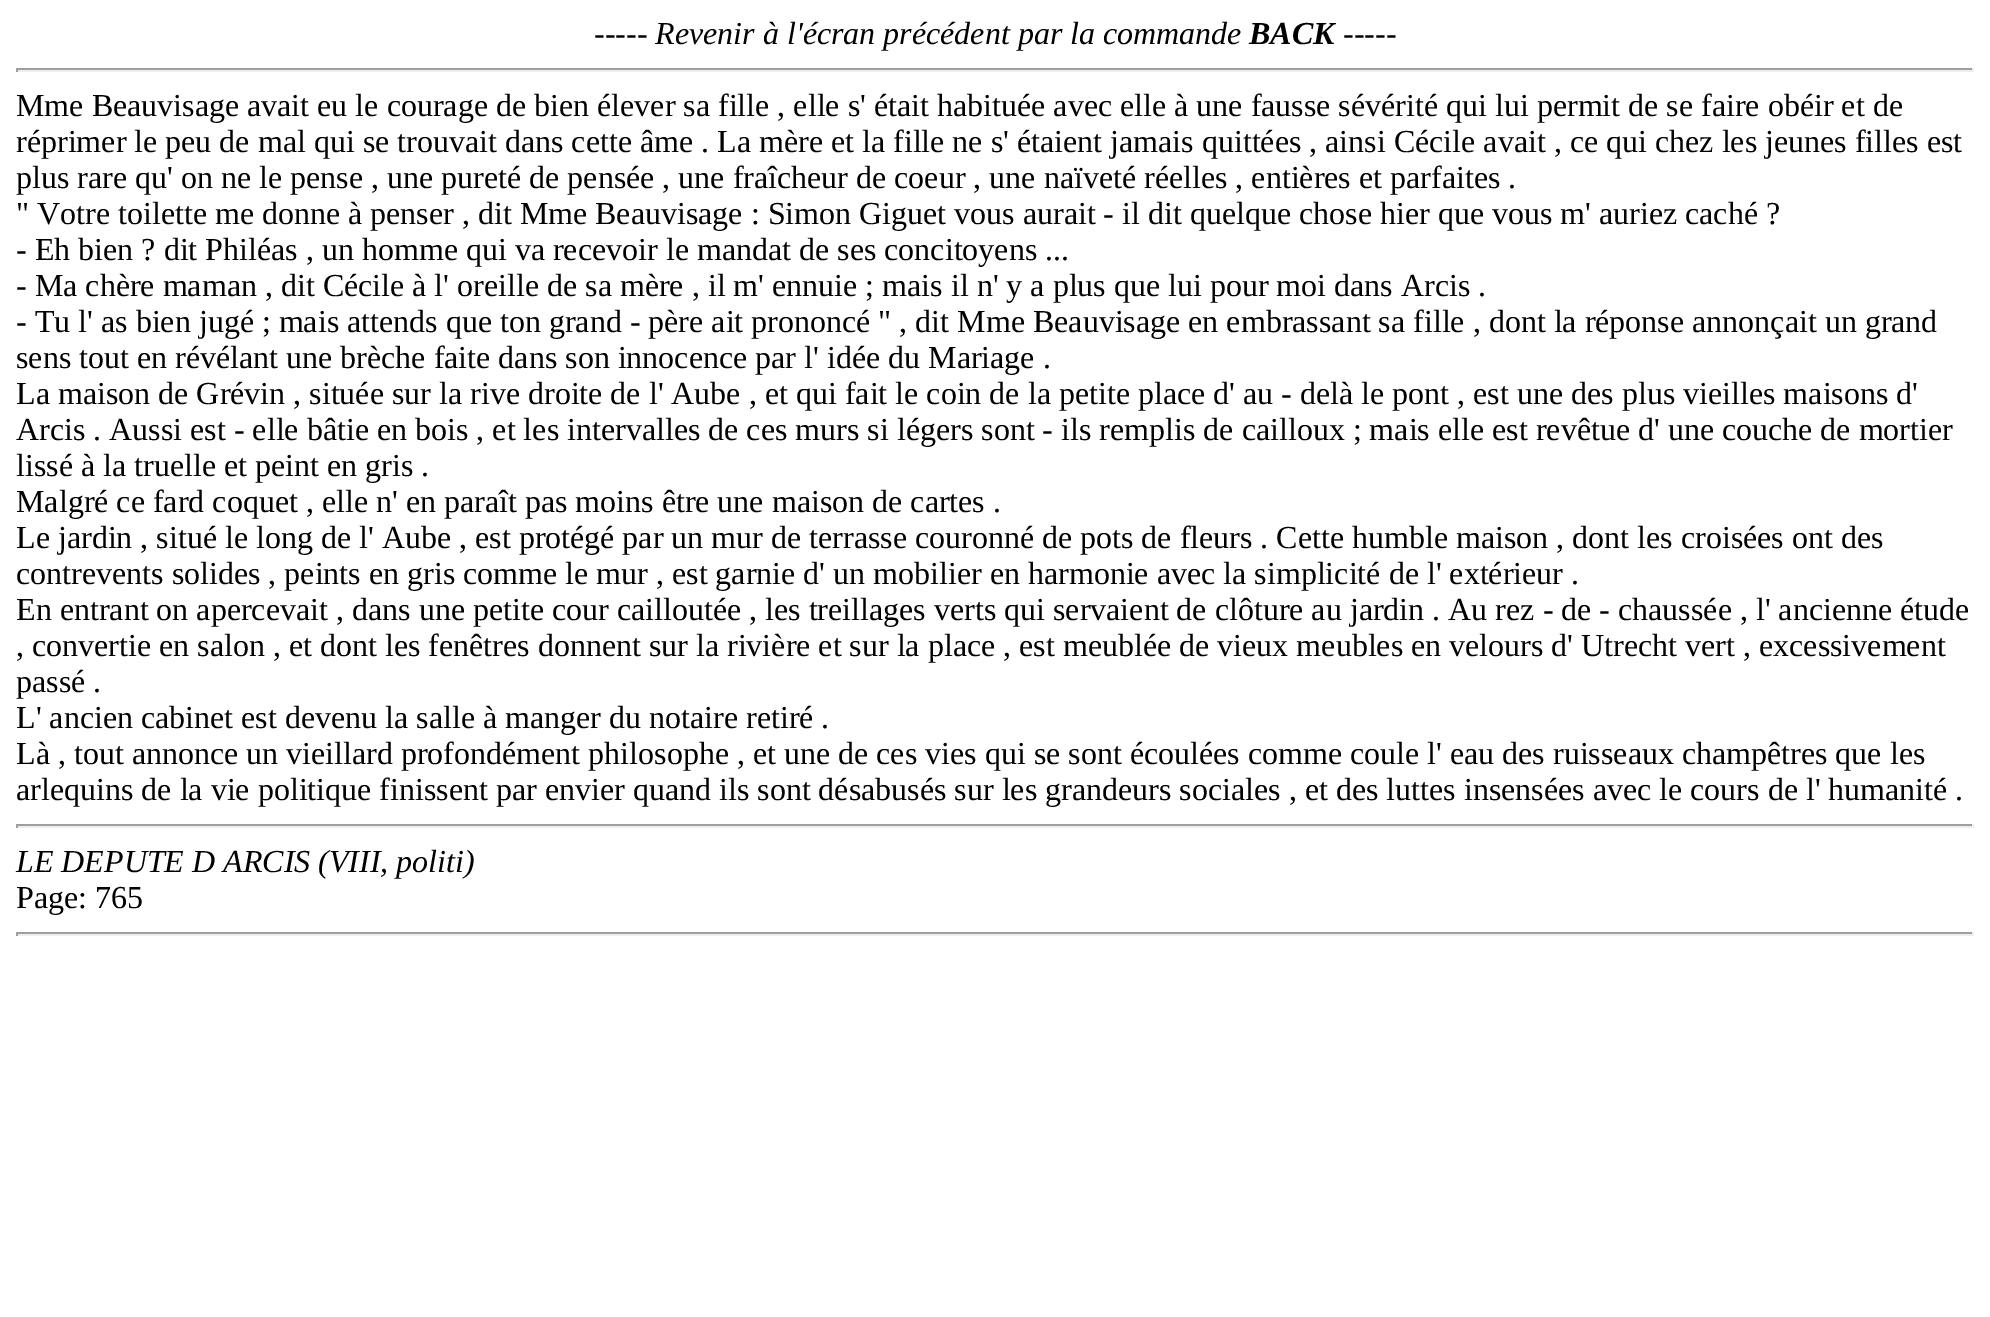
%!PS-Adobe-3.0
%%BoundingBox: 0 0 1990 1317
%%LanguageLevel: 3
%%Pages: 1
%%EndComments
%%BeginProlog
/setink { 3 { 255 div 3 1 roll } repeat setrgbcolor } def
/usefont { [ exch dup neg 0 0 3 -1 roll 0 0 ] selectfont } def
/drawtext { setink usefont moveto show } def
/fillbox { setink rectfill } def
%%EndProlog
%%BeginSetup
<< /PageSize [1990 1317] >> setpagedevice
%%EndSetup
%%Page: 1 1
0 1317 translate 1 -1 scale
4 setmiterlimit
0 0 1990 1317 255 255 255 fillbox
(----- Revenir à l'écran précédent par la commande) 594 44 /LiberationSerif-Italic 32 0 0 0 drawtext
(BACK) 1249 44 /LiberationSerif-BoldItalic 32 0 0 0 drawtext
(-----) 1343 44 /LiberationSerif-Italic 32 0 0 0 drawtext
16 68 1958 2 159 159 159 fillbox
1972 68 2 4 238 238 238 fillbox
16 70 1958 2 238 238 238 fillbox
16 68 2 4 159 159 159 fillbox
(Mme Beauvisage avait eu le courage de bien élever sa fille , elle s' était habituée avec elle à une fausse sévérité qui lui permit de se faire obéir et de) 16 116 /LiberationSerif-Regular 32 0 0 0 drawtext
(réprimer le peu de mal qui se trouvait dans cette âme . La mère et la fille ne s' étaient jamais quittées , ainsi Cécile avait , ce qui chez les jeunes filles est) 16 152 /LiberationSerif-Regular 32 0 0 0 drawtext
(plus rare qu' on ne le pense , une pureté de pensée , une fraîcheur de coeur , une naïveté réelles , entières et parfaites .) 16 188 /LiberationSerif-Regular 32 0 0 0 drawtext
(" Votre toilette me donne à penser , dit Mme Beauvisage : Simon Giguet vous aurait - il dit quelque chose hier que vous m' auriez caché ?) 16 224 /LiberationSerif-Regular 32 0 0 0 drawtext
(- Eh bien ? dit Philéas , un homme qui va recevoir le mandat de ses concitoyens ...) 16 260 /LiberationSerif-Regular 32 0 0 0 drawtext
(- Ma chère maman , dit Cécile à l' oreille de sa mère , il m' ennuie ; mais il n' y a plus que lui pour moi dans Arcis .) 16 296 /LiberationSerif-Regular 32 0 0 0 drawtext
(- Tu l' as bien jugé ; mais attends que ton grand - père ait prononcé " , dit Mme Beauvisage en embrassant sa fille , dont la réponse annonçait un grand) 16 332 /LiberationSerif-Regular 32 0 0 0 drawtext
(sens tout en révélant une brèche faite dans son innocence par l' idée du Mariage .) 16 368 /LiberationSerif-Regular 32 0 0 0 drawtext
(La maison de Grévin , située sur la rive droite de l' Aube , et qui fait le coin de la petite place d' au - delà le pont , est une des plus vieilles maisons d') 16 404 /LiberationSerif-Regular 32 0 0 0 drawtext
(Arcis . Aussi est - elle bâtie en bois , et les intervalles de ces murs si légers sont - ils remplis de cailloux ; mais elle est revêtue d' une couche de mortier) 16 440 /LiberationSerif-Regular 32 0 0 0 drawtext
(lissé à la truelle et peint en gris .) 16 476 /LiberationSerif-Regular 32 0 0 0 drawtext
(Malgré ce fard coquet , elle n' en paraît pas moins être une maison de cartes .) 16 512 /LiberationSerif-Regular 32 0 0 0 drawtext
(Le jardin , situé le long de l' Aube , est protégé par un mur de terrasse couronné de pots de fleurs . Cette humble maison , dont les croisées ont des) 16 548 /LiberationSerif-Regular 32 0 0 0 drawtext
(contrevents solides , peints en gris comme le mur , est garnie d' un mobilier en harmonie avec la simplicité de l' extérieur .) 16 584 /LiberationSerif-Regular 32 0 0 0 drawtext
(En entrant on apercevait , dans une petite cour cailloutée , les treillages verts qui servaient de clôture au jardin . Au rez - de - chaussée , l' ancienne étude) 16 620 /LiberationSerif-Regular 32 0 0 0 drawtext
(, convertie en salon , et dont les fenêtres donnent sur la rivière et sur la place , est meublée de vieux meubles en velours d' Utrecht vert , excessivement) 16 656 /LiberationSerif-Regular 32 0 0 0 drawtext
(passé .) 16 692 /LiberationSerif-Regular 32 0 0 0 drawtext
(L' ancien cabinet est devenu la salle à manger du notaire retiré .) 16 728 /LiberationSerif-Regular 32 0 0 0 drawtext
(Là , tout annonce un vieillard profondément philosophe , et une de ces vies qui se sont écoulées comme coule l' eau des ruisseaux champêtres que les) 16 764 /LiberationSerif-Regular 32 0 0 0 drawtext
(arlequins de la vie politique finissent par envier quand ils sont désabusés sur les grandeurs sociales , et des luttes insensées avec le cours de l' humanité .) 16 800 /LiberationSerif-Regular 32 0 0 0 drawtext
16 824 1958 2 159 159 159 fillbox
1972 824 2 4 238 238 238 fillbox
16 826 1958 2 238 238 238 fillbox
16 824 2 4 159 159 159 fillbox
(LE DEPUTE D ARCIS \(VIII, politi\)) 16 872 /LiberationSerif-Italic 32 0 0 0 drawtext
(Page: 765) 16 908 /LiberationSerif-Regular 32 0 0 0 drawtext
16 932 1958 2 159 159 159 fillbox
1972 932 2 4 238 238 238 fillbox
16 934 1958 2 238 238 238 fillbox
16 932 2 4 159 159 159 fillbox
showpage
%%EOF
